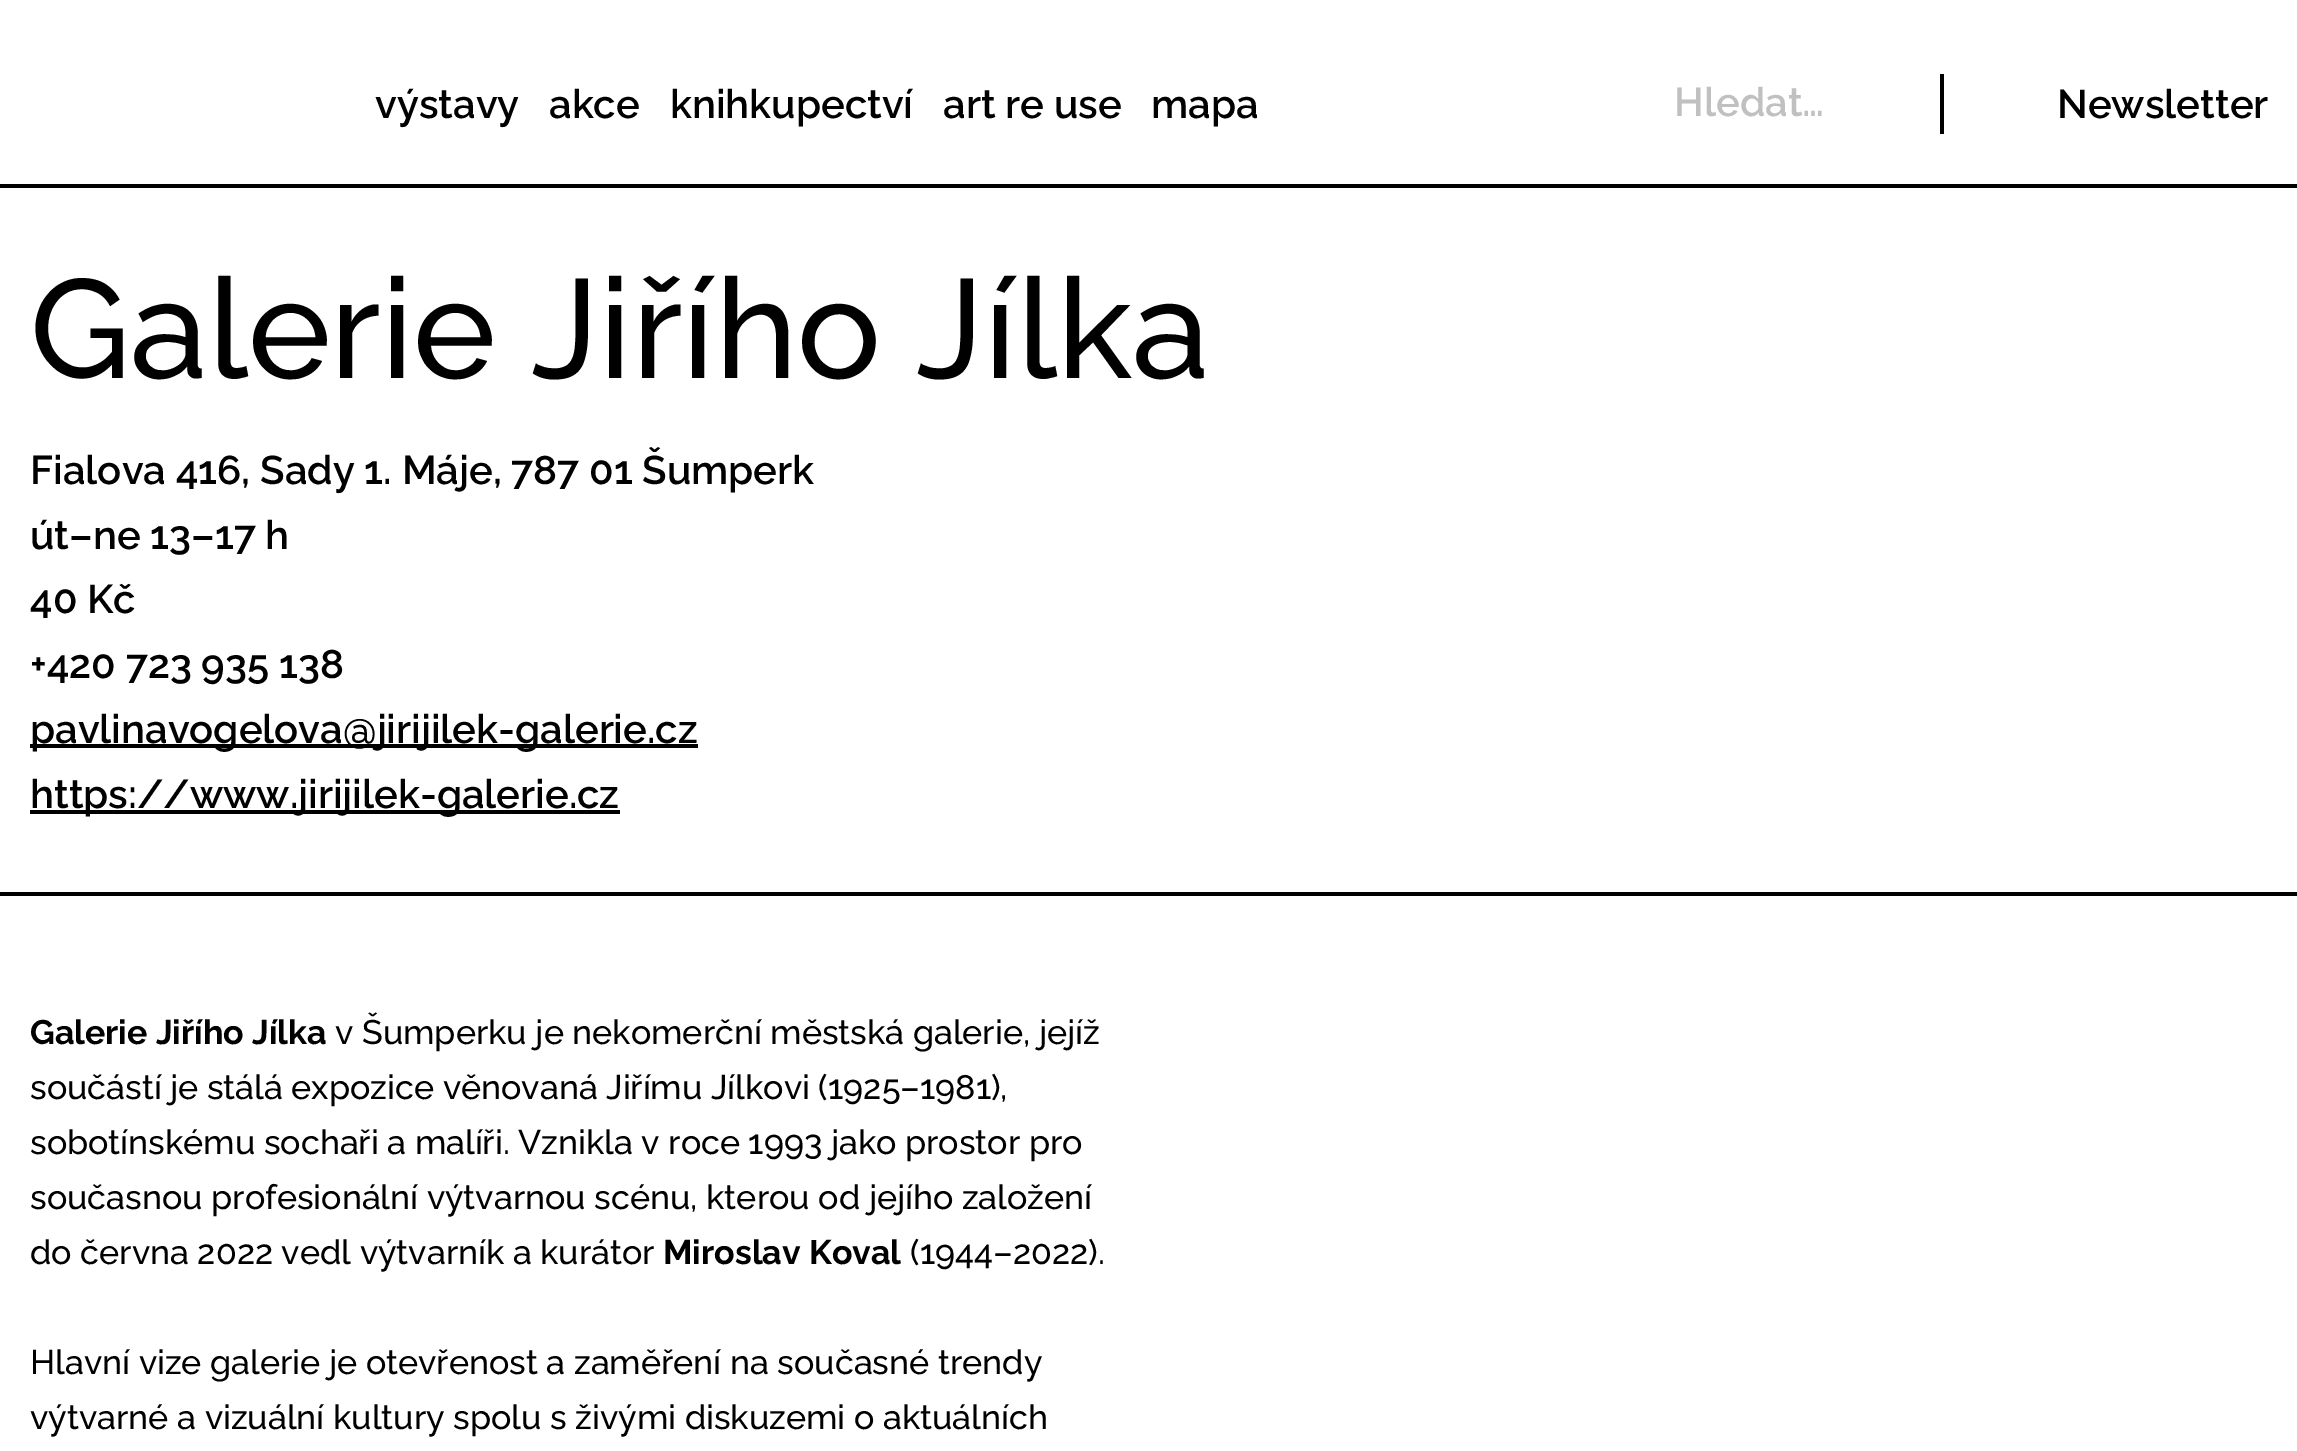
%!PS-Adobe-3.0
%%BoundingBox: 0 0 2297 1451
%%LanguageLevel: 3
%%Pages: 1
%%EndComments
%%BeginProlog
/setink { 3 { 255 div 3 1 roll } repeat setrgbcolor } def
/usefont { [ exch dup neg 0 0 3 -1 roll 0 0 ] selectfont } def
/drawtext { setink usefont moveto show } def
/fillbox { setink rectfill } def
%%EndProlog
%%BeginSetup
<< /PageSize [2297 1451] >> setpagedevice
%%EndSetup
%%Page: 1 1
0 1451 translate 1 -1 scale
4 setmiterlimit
0 0 2297 1451 255 255 255 fillbox
0 184 2297 4 0 0 0 fillbox
(výstavy) 375 118 /Raleway-SemiBold 40 0 0 0 drawtext
(akce) 549 118 /Raleway-SemiBold 40 0 0 0 drawtext
(knihkupectví) 670 118 /Raleway-SemiBold 40 0 0 0 drawtext
(art re use) 943 118 /Raleway-SemiBold 40 0 0 0 drawtext
(mapa) 1151 118 /Raleway-SemiBold 40 0 0 0 drawtext
(Hledat…) 1674 116 /Raleway-SemiBold 40 192 192 192 drawtext
1940 74 4 60 0 0 0 fillbox
(Newsletter) 2057 118 /Raleway-SemiBold 40 0 0 0 drawtext
(Galerie Jiřího Jílka) 30 378 /Raleway-Medium 140 0 0 0 drawtext
(Fialova 416, Sady 1. Máje, 787 01 Šumperk) 30 484 /Raleway-SemiBold 40 0 0 0 drawtext
(út–ne 13–17 h) 30 549 /Raleway-SemiBold 40 0 0 0 drawtext
(40 Kč) 30 613 /Raleway-SemiBold 40 0 0 0 drawtext
(+420 723 935 138) 30 678 /Raleway-SemiBold 40 0 0 0 drawtext
30 744 668 4 0 0 0 fillbox
(pavlinavogelova@jirijilek-galerie.cz) 30 743 /Raleway-SemiBold 40 0 0 0 drawtext
30 810 590 4 0 0 0 fillbox
(https://www.jirijilek-galerie.cz) 30 808 /Raleway-SemiBold 40 0 0 0 drawtext
0 892 2297 4 0 0 0 fillbox
(Galerie Jiřího Jílka) 30 1044 /Raleway-Bold 34 0 0 0 drawtext
(v Šumperku je nekomerční městská galerie, jejíž) 335 1044 /Raleway-Medium 34 0 0 0 drawtext
(součástí je stálá expozice věnovaná Jiřímu Jílkovi \(1925–1981\),) 30 1099 /Raleway-Medium 34 0 0 0 drawtext
(sobotínskému sochaři a malíři. Vznikla v roce 1993 jako prostor pro) 30 1154 /Raleway-Medium 34 0 0 0 drawtext
(současnou profesionální výtvarnou scénu, kterou od jejího založení) 30 1209 /Raleway-Medium 34 0 0 0 drawtext
(do června 2022 vedl výtvarník a kurátor) 30 1264 /Raleway-Medium 34 0 0 0 drawtext
(Miroslav Koval) 663 1264 /Raleway-Bold 34 0 0 0 drawtext
(\(1944–2022\).) 910 1264 /Raleway-Medium 34 0 0 0 drawtext
(Hlavní vize galerie je otevřenost a zaměření na současné trendy) 30 1374 /Raleway-Medium 34 0 0 0 drawtext
(výtvarné a vizuální kultury spolu s živými diskuzemi o aktuálních) 30 1429 /Raleway-Medium 34 0 0 0 drawtext
showpage
%%EOF
